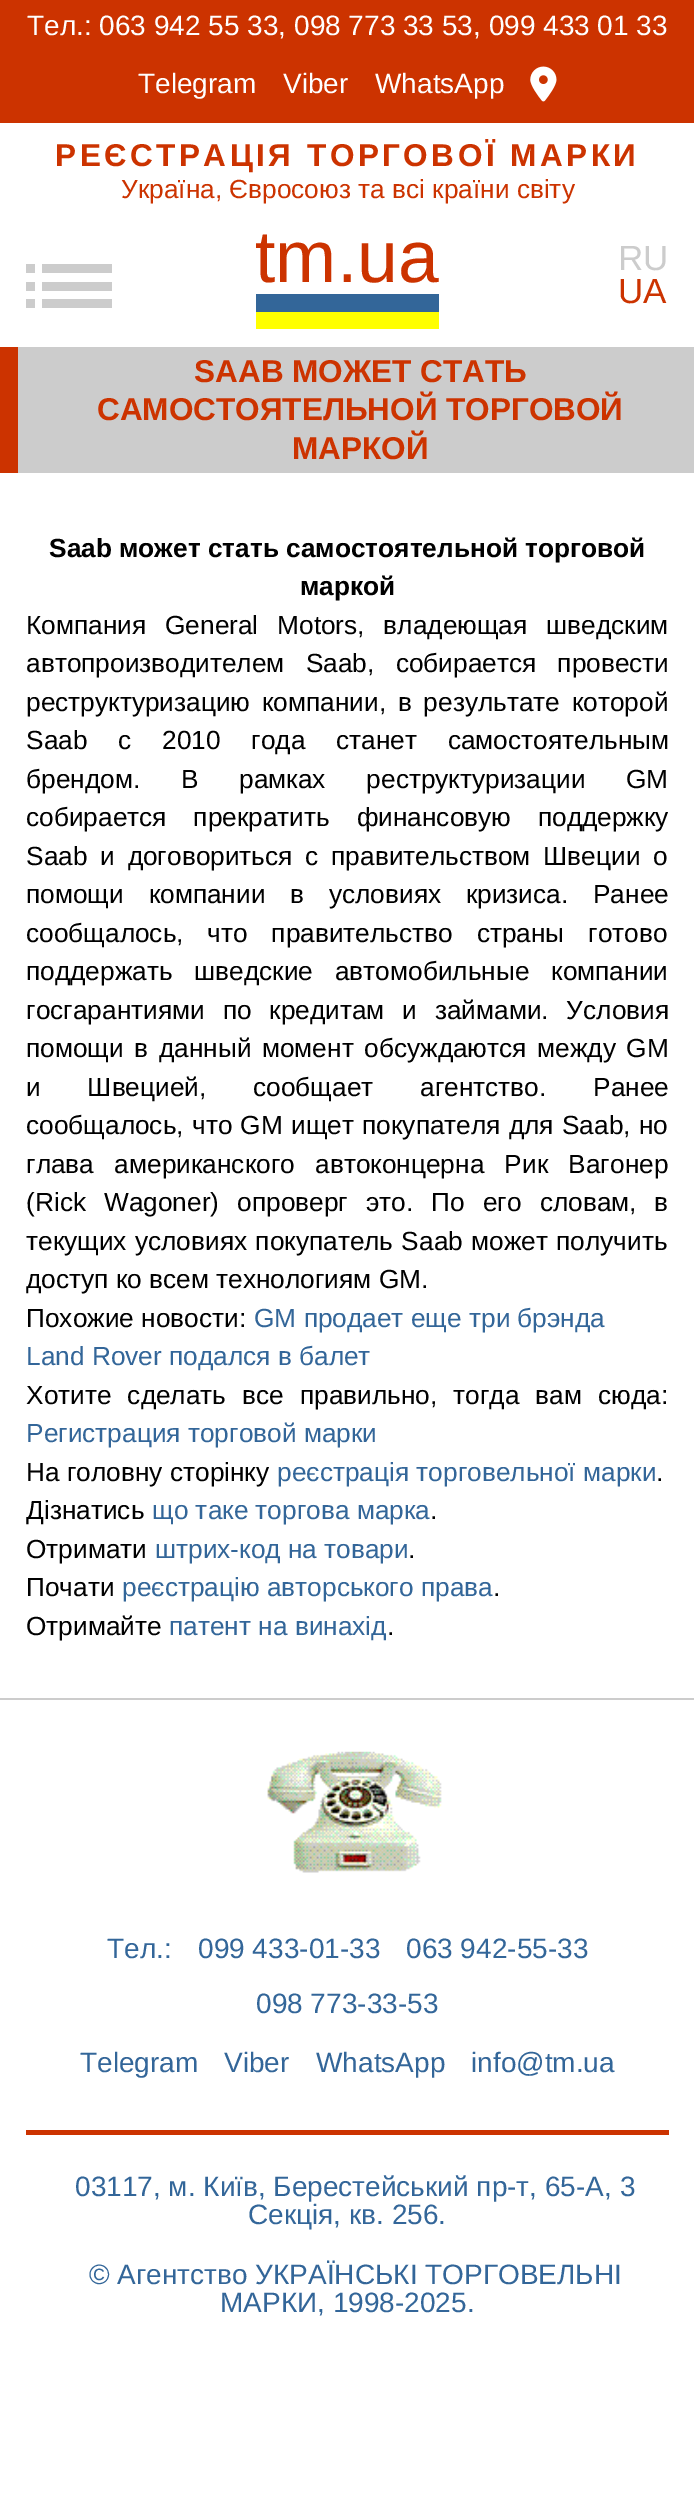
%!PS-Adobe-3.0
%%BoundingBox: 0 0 694 2518
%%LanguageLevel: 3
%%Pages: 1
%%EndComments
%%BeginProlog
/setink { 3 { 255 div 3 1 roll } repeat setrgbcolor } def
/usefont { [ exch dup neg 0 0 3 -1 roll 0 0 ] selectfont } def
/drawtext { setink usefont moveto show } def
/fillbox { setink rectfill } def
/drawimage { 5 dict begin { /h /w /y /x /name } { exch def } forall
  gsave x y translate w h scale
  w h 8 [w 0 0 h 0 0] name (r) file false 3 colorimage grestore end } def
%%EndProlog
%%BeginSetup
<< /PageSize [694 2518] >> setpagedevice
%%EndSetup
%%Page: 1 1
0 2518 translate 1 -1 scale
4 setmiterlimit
0 0 694 2518 255 255 255 fillbox
0 0 694 123 204 51 0 fillbox
(Тел.: 063 942 55 33, 098 773 33 53, 099 433 01 33) 27 35 /LiberationSans-Regular 28 255 255 255 drawtext
(Telegram) 138 93 /LiberationSans-Regular 28 255 255 255 drawtext
(Viber) 283 93 /LiberationSans-Regular 28 255 255 255 drawtext
(WhatsApp) 375 93 /LiberationSans-Regular 28 255 255 255 drawtext
(assets/img1.rgb) 530 66 27 36 drawimage
/LiberationSans-Bold 31.5 usefont
204 51 0 setink
55 166 moveto 3.5 0 (РЕЄСТРАЦІЯ ТОРГОВОЇ МАРКИ) ashow
(Україна, Євросоюз та всі країни світу) 121 198 /LiberationSans-Regular 26.25 204 51 0 drawtext
42 264 70 9 204 204 204 fillbox
26 264 9 9 204 204 204 fillbox
42 282 70 9 204 204 204 fillbox
26 282 9 9 204 204 204 fillbox
42 299 70 9 204 204 204 fillbox
26 299 9 9 204 204 204 fillbox
(tm.ua) 255 282 /LiberationSans-Regular 73.5 204 51 0 drawtext
256 294 183 18 51 102 153 fillbox
256 312 183 17 255 255 0 fillbox
(RU) 618 270 /LiberationSans-Regular 35 204 204 204 drawtext
(UA) 618 303 /LiberationSans-Regular 35 204 51 0 drawtext
18 347 676 126 204 204 204 fillbox
0 347 18 126 204 51 0 fillbox
(SAAB МОЖЕТ СТАТЬ) 194 382 /LiberationSans-Bold 31.5 204 51 0 drawtext
(САМОСТОЯТЕЛЬНОЙ ТОРГОВОЙ) 97 420 /LiberationSans-Bold 31.5 204 51 0 drawtext
(МАРКОЙ) 292 459 /LiberationSans-Bold 31.5 204 51 0 drawtext
(Saab может стать самостоятельной торговой) 49 557 /LiberationSans-Bold 26.25 0 0 0 drawtext
(маркой) 300 595 /LiberationSans-Bold 26.25 0 0 0 drawtext
/LiberationSans-Regular 26.25 usefont
26 634 moveto 11.5 0 32 (Компания General Motors, владеющая шведским) widthshow
26 672 moveto 14 0 32 (автопроизводителем Saab, собирается провести) widthshow
26 711 moveto 4.5 0 32 (реструктуризацию компании, в результате которой) widthshow
26 749 moveto 23.5 0 32 (Saab с 2010 года станет самостоятельным) widthshow
26 788 moveto 33.5 0 32 (брендом. В рамках реструктуризации GM) widthshow
26 826 moveto 19.5 0 32 (собирается прекратить финансовую поддержку) widthshow
26 865 moveto 5.5 0 32 (Saab и договориться с правительством Швеции о) widthshow
26 903 moveto 17.5 0 32 (помощи компании в условиях кризиса. Ранее) widthshow
26 942 moveto 16.5 0 32 (сообщалось, что правительство страны готово) widthshow
26 980 moveto 14.5 0 32 (поддержать шведские автомобильные компании) widthshow
26 1019 moveto 10.5 0 32 (госгарантиями по кредитам и займами. Условия) widthshow
26 1057 moveto 3.25 0 32 (помощи в данный момент обсуждаются между GM) widthshow
26 1096 moveto 39.5 0 32 (и Швецией, сообщает агентство. Ранее) widthshow
26 1134 moveto 1 0 32 (сообщалось, что GM ищет покупателя для Saab, но) widthshow
26 1173 moveto 13 0 32 (глава американского автоконцерна Рик Вагонер) widthshow
26 1211 moveto 10.75 0 32 (\(Rick Wagoner\) опроверг это. По его словам, в) widthshow
26 1250 moveto 1 0 32 (текущих условиях покупатель Saab может получить) widthshow
(доступ ко всем технологиям GM.) 26 1288 /LiberationSans-Regular 26.25 0 0 0 drawtext
(Похожие новости:) 26 1327 /LiberationSans-Regular 26.25 0 0 0 drawtext
(GM продает еще три брэнда) 254 1327 /LiberationSans-Regular 26.25 51 102 153 drawtext
(Land Rover подался в балет) 26 1365 /LiberationSans-Regular 26.25 51 102 153 drawtext
0 0 0 setink
26 1404 moveto 8.75 0 32 (Хотите сделать все правильно, тогда вам сюда:) widthshow
(Регистрация торговой марки) 26 1442 /LiberationSans-Regular 26.25 51 102 153 drawtext
(На головну сторінку) 26 1481 /LiberationSans-Regular 26.25 0 0 0 drawtext
(реєстрація торговельної марки) 277 1481 /LiberationSans-Regular 26.25 51 102 153 drawtext
(.) 656 1481 /LiberationSans-Regular 26.25 0 0 0 drawtext
(Дізнатись) 26 1519 /LiberationSans-Regular 26.25 0 0 0 drawtext
(що таке торгова марка) 152 1519 /LiberationSans-Regular 26.25 51 102 153 drawtext
(.) 430 1519 /LiberationSans-Regular 26.25 0 0 0 drawtext
(Отримати) 26 1558 /LiberationSans-Regular 26.25 0 0 0 drawtext
(штрих-код на товари) 155 1558 /LiberationSans-Regular 26.25 51 102 153 drawtext
(.) 408 1558 /LiberationSans-Regular 26.25 0 0 0 drawtext
(Почати) 26 1596 /LiberationSans-Regular 26.25 0 0 0 drawtext
(реєстрацію авторського права) 122 1596 /LiberationSans-Regular 26.25 51 102 153 drawtext
(.) 493 1596 /LiberationSans-Regular 26.25 0 0 0 drawtext
(Отримайте) 26 1635 /LiberationSans-Regular 26.25 0 0 0 drawtext
(патент на винахід) 169 1635 /LiberationSans-Regular 26.25 51 102 153 drawtext
(.) 387 1635 /LiberationSans-Regular 26.25 0 0 0 drawtext
0 1698 694 2 204 204 204 fillbox
(assets/img2.rgb) 267 1751 175 122 drawimage
(Teл.:) 107 1958 /LiberationSans-Regular 28 51 102 153 drawtext
(099 433-01-33) 198 1958 /LiberationSans-Regular 28 51 102 153 drawtext
(063 942-55-33) 406 1958 /LiberationSans-Regular 28 51 102 153 drawtext
(098 773-33-53) 256 2013 /LiberationSans-Regular 28 51 102 153 drawtext
(Telegram) 80 2072 /LiberationSans-Regular 28 51 102 153 drawtext
(Viber) 224 2072 /LiberationSans-Regular 28 51 102 153 drawtext
(WhatsApp) 316 2072 /LiberationSans-Regular 28 51 102 153 drawtext
(info@tm.ua) 471 2072 /LiberationSans-Regular 28 51 102 153 drawtext
26 2130 643 5 204 51 0 fillbox
(03117, м. Київ, Берестейський пр-т, 65-А, 3) 75 2196 /LiberationSans-Regular 28 51 102 153 drawtext
(Секція, кв. 256.) 248 2224 /LiberationSans-Regular 28 51 102 153 drawtext
(© Агентство УКРАЇНСЬКІ ТОРГОВЕЛЬНІ) 89 2284 /LiberationSans-Regular 28 51 102 153 drawtext
(МАРКИ, 1998-2025.) 220 2312 /LiberationSans-Regular 28 51 102 153 drawtext
showpage
%%EOF
